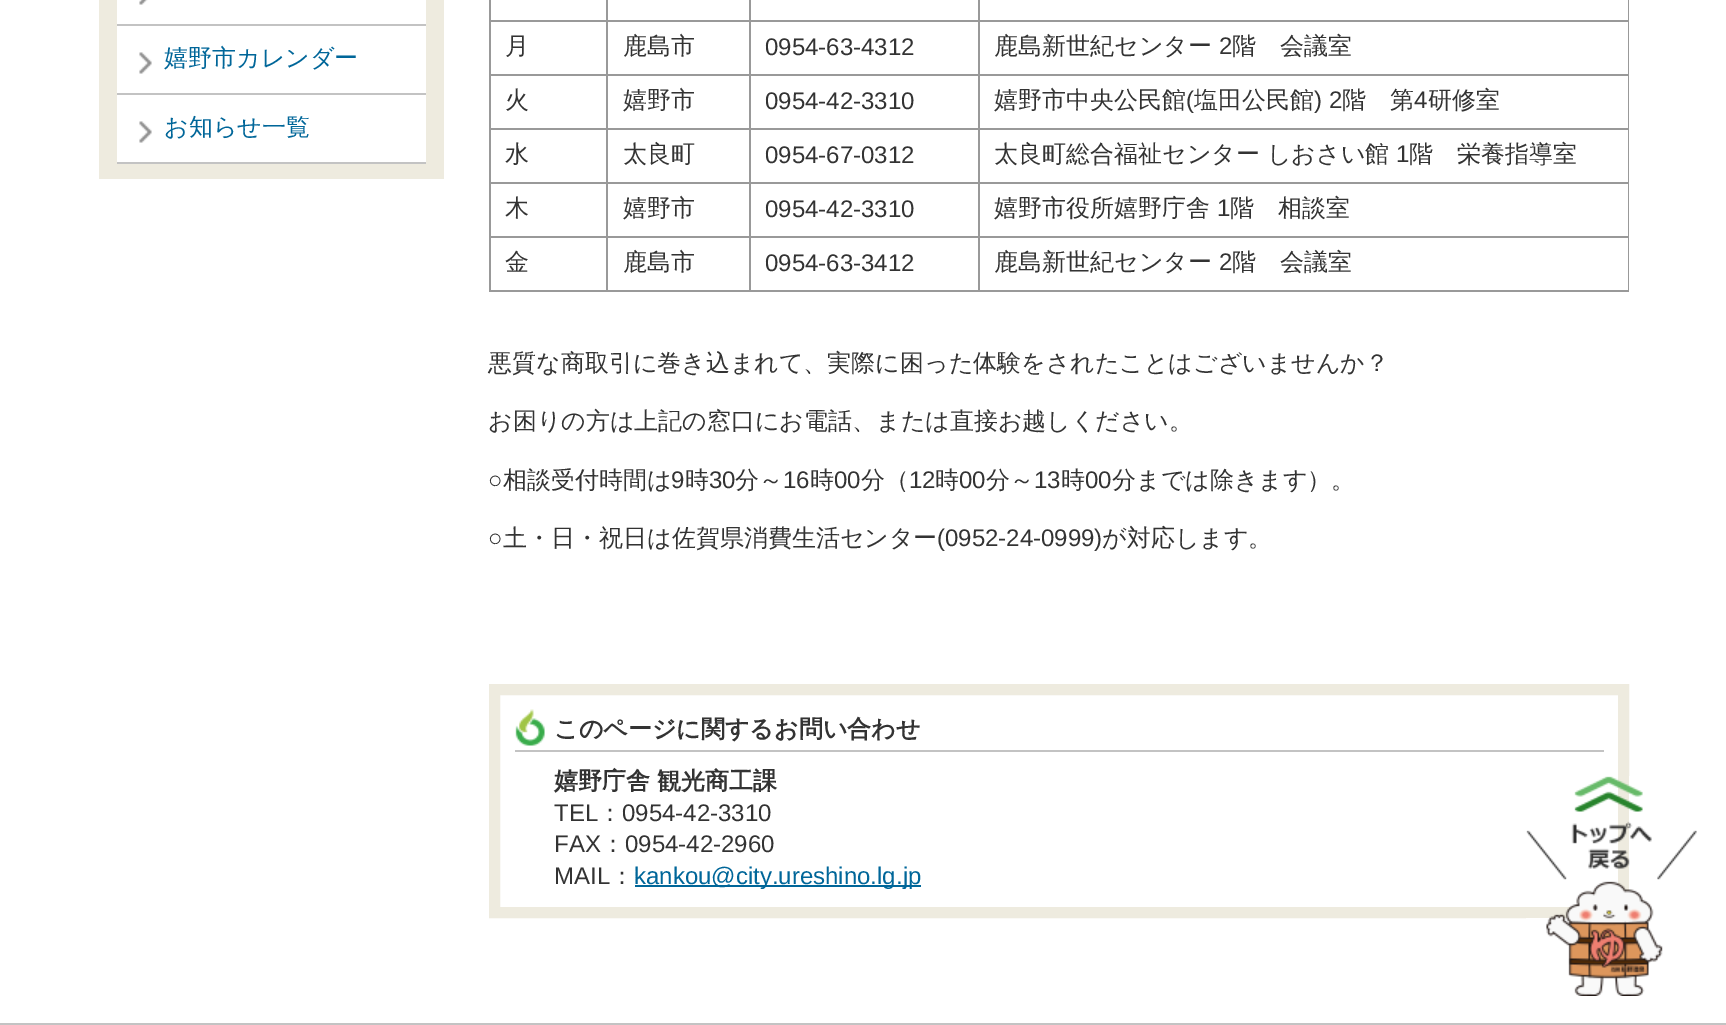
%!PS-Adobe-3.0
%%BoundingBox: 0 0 1726 1025
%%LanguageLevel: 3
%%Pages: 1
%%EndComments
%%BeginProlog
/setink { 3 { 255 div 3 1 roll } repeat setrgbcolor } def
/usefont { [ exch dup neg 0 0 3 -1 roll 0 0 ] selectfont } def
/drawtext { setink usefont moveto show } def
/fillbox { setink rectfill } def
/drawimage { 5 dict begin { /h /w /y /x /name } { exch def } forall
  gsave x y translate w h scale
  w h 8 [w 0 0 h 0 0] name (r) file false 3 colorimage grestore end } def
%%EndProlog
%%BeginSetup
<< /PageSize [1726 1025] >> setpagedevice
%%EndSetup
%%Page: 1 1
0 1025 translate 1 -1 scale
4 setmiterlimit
0 0 1726 1025 255 255 255 fillbox
99 0 345 179 238 235 223 fillbox
117 0 309 24 255 255 255 fillbox
(assets/img1.rgb) 139 0 9 5 drawimage
117 24 309 2 195 195 195 fillbox
117 26 309 67 255 255 255 fillbox
(assets/img2.rgb) 139 52 13 22 drawimage
117 93 309 2 195 195 195 fillbox
(嬉野市カレンダー) 164 66 /WenQuanYiZenHei-Medium 24 0 102 153 drawtext
117 95 309 67 255 255 255 fillbox
(assets/img2.rgb) 139 121 13 22 drawimage
117 162 309 2 195 195 195 fillbox
(お知らせ一覧) 164 135 /WenQuanYiZenHei-Medium 24 0 102 153 drawtext
1628 0 1 291 153 153 153 fillbox
489 290 1140 2 153 153 153 fillbox
489 0 2 291 153 153 153 fillbox
978 20 651 2 153 153 153 fillbox
978 74 651 2 153 153 153 fillbox
978 128 651 2 153 153 153 fillbox
978 182 651 2 153 153 153 fillbox
978 236 651 2 153 153 153 fillbox
978 236 2 55 153 153 153 fillbox
749 236 231 2 153 153 153 fillbox
978 182 2 55 153 153 153 fillbox
749 182 231 2 153 153 153 fillbox
978 128 2 55 153 153 153 fillbox
749 128 231 2 153 153 153 fillbox
978 74 2 55 153 153 153 fillbox
749 74 231 2 153 153 153 fillbox
978 20 2 55 153 153 153 fillbox
749 20 231 2 153 153 153 fillbox
749 236 2 55 153 153 153 fillbox
606 236 144 2 153 153 153 fillbox
749 182 2 55 153 153 153 fillbox
606 182 144 2 153 153 153 fillbox
749 128 2 55 153 153 153 fillbox
606 128 144 2 153 153 153 fillbox
749 74 2 55 153 153 153 fillbox
606 74 144 2 153 153 153 fillbox
749 20 2 55 153 153 153 fillbox
606 20 144 2 153 153 153 fillbox
606 236 2 55 153 153 153 fillbox
489 236 119 2 153 153 153 fillbox
606 182 2 55 153 153 153 fillbox
489 182 119 2 153 153 153 fillbox
606 128 2 55 153 153 153 fillbox
489 128 119 2 153 153 153 fillbox
606 74 2 55 153 153 153 fillbox
489 74 119 2 153 153 153 fillbox
606 20 2 55 153 153 153 fillbox
489 20 119 2 153 153 153 fillbox
606 0 2 21 153 153 153 fillbox
749 0 2 21 153 153 153 fillbox
978 0 2 21 153 153 153 fillbox
(月) 505 54 /WenQuanYiZenHei-Medium 24 51 51 51 drawtext
(鹿島市) 623 54 /WenQuanYiZenHei-Medium 24 51 51 51 drawtext
(0954-63-4312) 765 55 /LiberationSans-Regular 24 51 51 51 drawtext
(鹿島新世紀センター) 994 54 /WenQuanYiZenHei-Medium 24 51 51 51 drawtext
(2) 1219 54 /LiberationSans-Regular 24 51 51 51 drawtext
(階　会議室) 1232 54 /WenQuanYiZenHei-Medium 24 51 51 51 drawtext
(火) 505 108 /WenQuanYiZenHei-Medium 24 51 51 51 drawtext
(嬉野市) 623 108 /WenQuanYiZenHei-Medium 24 51 51 51 drawtext
(0954-42-3310) 765 109 /LiberationSans-Regular 24 51 51 51 drawtext
(嬉野市中央公民館) 994 108 /WenQuanYiZenHei-Medium 24 51 51 51 drawtext
(\() 1186 108 /LiberationSans-Regular 24 51 51 51 drawtext
(塩田公民館) 1194 108 /WenQuanYiZenHei-Medium 24 51 51 51 drawtext
(\) 2) 1314 108 /LiberationSans-Regular 24 51 51 51 drawtext
(階　第) 1342 108 /WenQuanYiZenHei-Medium 24 51 51 51 drawtext
(4) 1414 108 /LiberationSans-Regular 24 51 51 51 drawtext
(研修室) 1428 108 /WenQuanYiZenHei-Medium 24 51 51 51 drawtext
(水) 505 162 /WenQuanYiZenHei-Medium 24 51 51 51 drawtext
(太良町) 623 162 /WenQuanYiZenHei-Medium 24 51 51 51 drawtext
(0954-67-0312) 765 163 /LiberationSans-Regular 24 51 51 51 drawtext
(太良町総合福祉センター しおさい館) 994 162 /WenQuanYiZenHei-Medium 24 51 51 51 drawtext
(1) 1396 162 /LiberationSans-Regular 24 51 51 51 drawtext
(階　栄養指導室) 1409 162 /WenQuanYiZenHei-Medium 24 51 51 51 drawtext
(木) 505 216 /WenQuanYiZenHei-Medium 24 51 51 51 drawtext
(嬉野市) 623 216 /WenQuanYiZenHei-Medium 24 51 51 51 drawtext
(0954-42-3310) 765 217 /LiberationSans-Regular 24 51 51 51 drawtext
(嬉野市役所嬉野庁舎) 994 216 /WenQuanYiZenHei-Medium 24 51 51 51 drawtext
(1) 1217 216 /LiberationSans-Regular 24 51 51 51 drawtext
(階　相談室) 1230 216 /WenQuanYiZenHei-Medium 24 51 51 51 drawtext
(金) 505 270 /WenQuanYiZenHei-Medium 24 51 51 51 drawtext
(鹿島市) 623 270 /WenQuanYiZenHei-Medium 24 51 51 51 drawtext
(0954-63-3412) 765 271 /LiberationSans-Regular 24 51 51 51 drawtext
(鹿島新世紀センター) 994 270 /WenQuanYiZenHei-Medium 24 51 51 51 drawtext
(2) 1219 270 /LiberationSans-Regular 24 51 51 51 drawtext
(階　会議室) 1232 270 /WenQuanYiZenHei-Medium 24 51 51 51 drawtext
(悪質な商取引に巻き込まれて、実際に困った体験をされたことはございませんか？) 488 371 /WenQuanYiZenHei-Medium 24 51 51 51 drawtext
(お困りの方は上記の窓口にお電話、または直接お越しください。) 488 429 /WenQuanYiZenHei-Medium 24 51 51 51 drawtext
(○) 488 488 /LiberationSans-Regular 24 51 51 51 drawtext
(相談受付時間は) 503 488 /WenQuanYiZenHei-Medium 24 51 51 51 drawtext
(9) 671 488 /LiberationSans-Regular 24 51 51 51 drawtext
(時) 685 488 /WenQuanYiZenHei-Medium 24 51 51 51 drawtext
(30) 709 488 /LiberationSans-Regular 24 51 51 51 drawtext
(分～) 735 488 /WenQuanYiZenHei-Medium 24 51 51 51 drawtext
(16) 783 488 /LiberationSans-Regular 24 51 51 51 drawtext
(時) 810 488 /WenQuanYiZenHei-Medium 24 51 51 51 drawtext
(00) 834 488 /LiberationSans-Regular 24 51 51 51 drawtext
(分（) 861 488 /WenQuanYiZenHei-Medium 24 51 51 51 drawtext
(12) 909 488 /LiberationSans-Regular 24 51 51 51 drawtext
(時) 935 488 /WenQuanYiZenHei-Medium 24 51 51 51 drawtext
(00) 959 488 /LiberationSans-Regular 24 51 51 51 drawtext
(分～) 986 488 /WenQuanYiZenHei-Medium 24 51 51 51 drawtext
(13) 1034 488 /LiberationSans-Regular 24 51 51 51 drawtext
(時) 1061 488 /WenQuanYiZenHei-Medium 24 51 51 51 drawtext
(00) 1085 488 /LiberationSans-Regular 24 51 51 51 drawtext
(分までは除きます）。) 1112 488 /WenQuanYiZenHei-Medium 24 51 51 51 drawtext
(○) 488 546 /LiberationSans-Regular 24 51 51 51 drawtext
(土・日・祝日は佐賀県消費生活センター) 503 546 /WenQuanYiZenHei-Medium 24 51 51 51 drawtext
(\(0952-24-0999\)) 937 546 /LiberationSans-Regular 24 51 51 51 drawtext
(が対応します。) 1102 546 /WenQuanYiZenHei-Medium 24 51 51 51 drawtext
238 235 223 setink
11 setlinewidth
494.5 689.5 1129 223 rectstroke
(assets/img3.rgb) 515 709 30 37 drawimage
515 750 1089 2 195 195 195 fillbox
(このページに関するお問い合わせ) 554 737 /WenQuanYiZenHei-Bold 24 51 51 51 drawtext
(嬉野庁舎) 554 789 /WenQuanYiZenHei-Bold 24 51 51 51 drawtext
(観光商工課) 657 789 /WenQuanYiZenHei-Bold 24 51 51 51 drawtext
(TEL) 554 821 /LiberationSans-Regular 24 51 51 51 drawtext
(：) 598 821 /WenQuanYiZenHei-Medium 24 51 51 51 drawtext
(0954-42-3310) 622 821 /LiberationSans-Regular 24 51 51 51 drawtext
(FAX) 554 852 /LiberationSans-Regular 24 51 51 51 drawtext
(：) 601 852 /WenQuanYiZenHei-Medium 24 51 51 51 drawtext
(0954-42-2960) 625 852 /LiberationSans-Regular 24 51 51 51 drawtext
(MAIL) 554 884 /LiberationSans-Regular 24 51 51 51 drawtext
(：) 610 884 /WenQuanYiZenHei-Medium 24 51 51 51 drawtext
635 885 286 2 0 102 153 fillbox
(kankou@city.ureshino.lg.jp) 634 884 /LiberationSans-Regular 24 0 102 153 drawtext
(assets/img4.rgb) 1526 776 171 220 drawimage
0 1023 1726 2 195 195 195 fillbox
showpage
%%EOF
